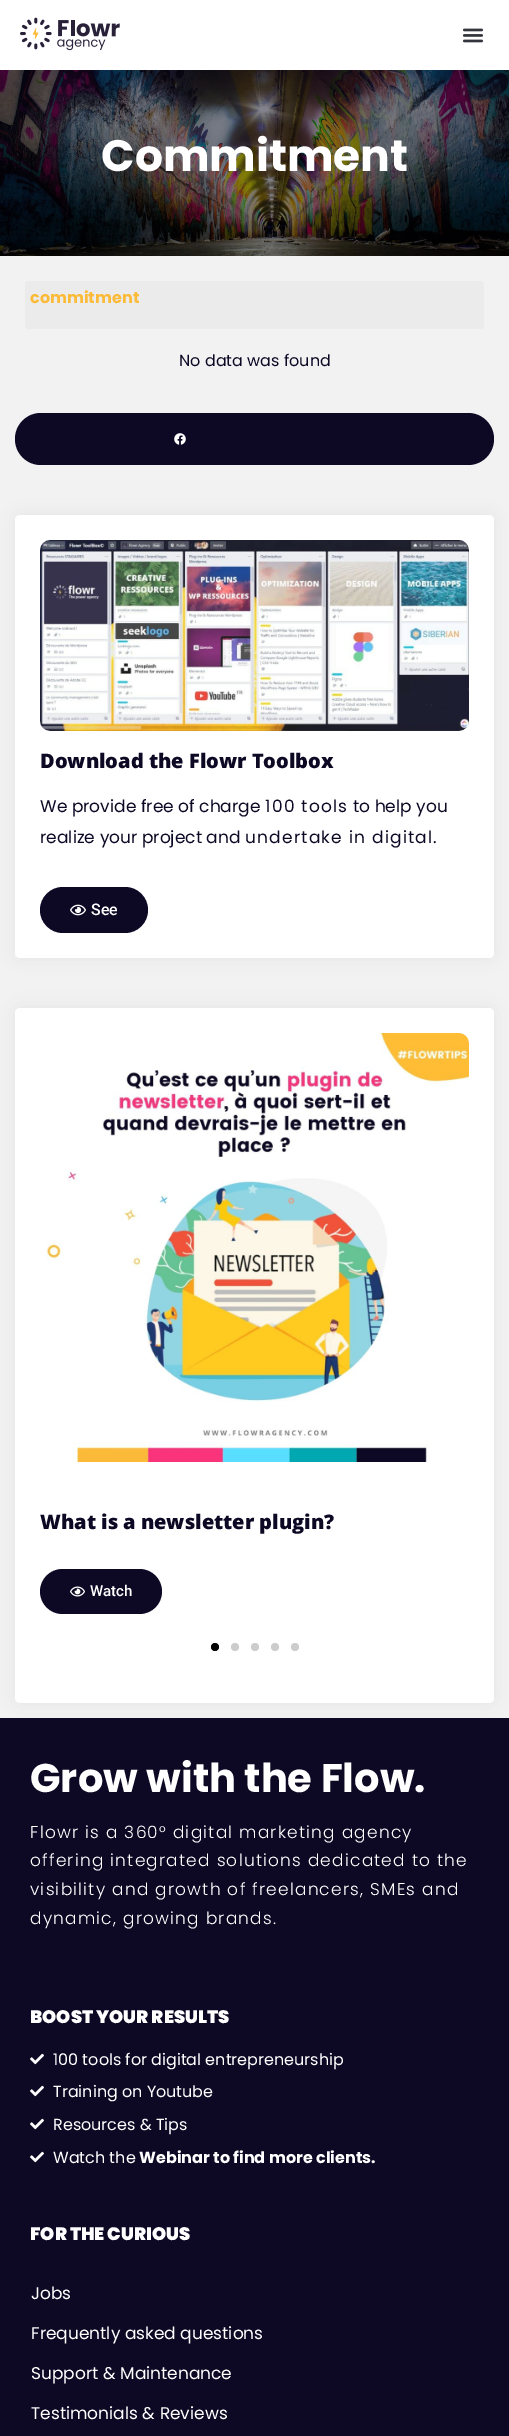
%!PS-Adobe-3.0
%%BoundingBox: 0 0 509 2436
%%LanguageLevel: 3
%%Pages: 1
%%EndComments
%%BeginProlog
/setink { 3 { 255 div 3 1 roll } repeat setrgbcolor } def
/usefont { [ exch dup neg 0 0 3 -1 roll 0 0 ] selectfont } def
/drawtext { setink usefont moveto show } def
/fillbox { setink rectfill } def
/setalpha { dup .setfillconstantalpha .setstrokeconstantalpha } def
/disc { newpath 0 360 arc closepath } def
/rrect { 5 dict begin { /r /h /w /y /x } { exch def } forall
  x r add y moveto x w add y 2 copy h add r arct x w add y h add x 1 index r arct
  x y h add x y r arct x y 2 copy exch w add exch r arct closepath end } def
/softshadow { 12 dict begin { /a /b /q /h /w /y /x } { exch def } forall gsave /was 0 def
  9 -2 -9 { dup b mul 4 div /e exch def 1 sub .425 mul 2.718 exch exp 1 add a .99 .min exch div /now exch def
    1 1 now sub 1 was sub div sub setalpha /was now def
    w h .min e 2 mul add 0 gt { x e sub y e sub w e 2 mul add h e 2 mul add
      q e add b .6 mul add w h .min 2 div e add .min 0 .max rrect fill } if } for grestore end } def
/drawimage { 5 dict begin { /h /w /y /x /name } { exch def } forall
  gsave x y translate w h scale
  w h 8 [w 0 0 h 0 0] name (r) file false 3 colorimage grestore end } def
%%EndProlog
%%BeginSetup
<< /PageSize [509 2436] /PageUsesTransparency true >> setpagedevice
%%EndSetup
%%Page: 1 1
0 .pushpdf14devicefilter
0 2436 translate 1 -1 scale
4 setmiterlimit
0 0 509 2436 242 242 242 fillbox
0 0 509 70 255 255 255 fillbox
(assets/img1.rgb) 20 17 100 34 drawimage
(assets/img2.rgb) 462 28 22 15 drawimage
(assets/img3.rgb) 0 70 509 186 drawimage
(Commitment) 101 171 /Poppins-Bold 44 255 255 255 drawtext
235 235 235 setink
25 281 459 48 3 rrect fill
(commitment) 30 303 /Poppins-Bold 16 251 187 56 drawtext
(No data was found) 179 366 /Poppins-Regular 16 13 9 37 drawtext
15 413 479 52 26 rrect fill
(assets/img4.rgb) 174 433 12 12 drawimage
0 0 0 setink
15 515 479 443 5 10 0.06 softshadow
255 255 255 setink
15 515 479 443 5 rrect fill
(assets/img5.rgb) 40 540 429 191 drawimage
(Download the Flowr Toolbox) 40 768 /OpenSans-ExtraBold 20 13 9 37 drawtext
(We provide free of charge) 40 812 /Poppins-Regular 17 13 9 37 drawtext
265 812 moveto 1.2 0 (100 tools) ashow
(to help you) 353 812 /Poppins-Regular 17 13 9 37 drawtext
(realize your project and) 40 843 /Poppins-Regular 17 13 9 37 drawtext
245 843 moveto 1.2 0 (undertake in digital.) ashow
40 887 108 46 23 rrect fill
(assets/img6.rgb) 70 904 16 12 drawimage
(See) 91 915 /Roboto-Medium 16 255 255 255 drawtext
0 1718 509 718 13 9 37 fillbox
0 0 0 setink
15 1008 479 695 5 10 0.06 softshadow
255 255 255 setink
15 1008 479 695 5 rrect fill
(assets/img7.rgb) 46 1033 423 429 drawimage
(What is a newsletter plugin?) 40 1529 /OpenSans-ExtraBold 20 13 9 37 drawtext
40 1569 122 45 22.5 rrect fill
(assets/img8.rgb) 70 1586 15 11 drawimage
(Watch) 90 1596 /Roboto-Medium 15 255 255 255 drawtext
0 0 0 setink
215 1647 4 disc fill
204 204 204 setink
235 1647 4 disc fill
255 1647 4 disc fill
275 1647 4 disc fill
295 1647 4 disc fill
(Grow with the Flow.) 30 1792 /Poppins-Bold 40 255 255 255 drawtext
/Poppins-Light 17 usefont
30 1838 moveto 1.2 0 (Flowr is a 360° digital marketing agency) ashow
30 1866 moveto 1.2 0 (offering integrated solutions dedicated to the) ashow
30 1895 moveto 1.2 0 (visibility and growth of freelancers, SMEs and) ashow
30 1924 moveto 1.2 0 (dynamic, growing brands.) ashow
(BOOST YOUR RESULTS) 30 2023 /Poppins-Black 18 255 255 255 drawtext
(assets/img9.rgb) 30 2053 14 12 drawimage
(100 tools for digital entrepreneurship) 53 2065 /Poppins-Regular 16 255 255 255 drawtext
(assets/img9.rgb) 30 2085 14 12 drawimage
(Training on Youtube) 53 2097 /Poppins-Regular 16 255 255 255 drawtext
(assets/img9.rgb) 30 2118 14 12 drawimage
(Resources & Tips) 53 2130 /Poppins-Regular 16 255 255 255 drawtext
(assets/img9.rgb) 30 2151 14 12 drawimage
(Watch the) 53 2163 /Poppins-Regular 16 255 255 255 drawtext
(Webinar to find more clients.) 139 2163 /Poppins-Bold 16 255 255 255 drawtext
(FOR THE CURIOUS) 30 2240 /Poppins-Black 18 255 255 255 drawtext
(Jobs) 31 2299 /Poppins-Regular 17 255 255 255 drawtext
(Frequently asked questions) 31 2339 /Poppins-Regular 17 255 255 255 drawtext
(Support & Maintenance) 31 2379 /Poppins-Regular 17 255 255 255 drawtext
(Testimonials & Reviews) 31 2419 /Poppins-Regular 17 255 255 255 drawtext
.poppdf14devicefilter showpage
%%EOF
